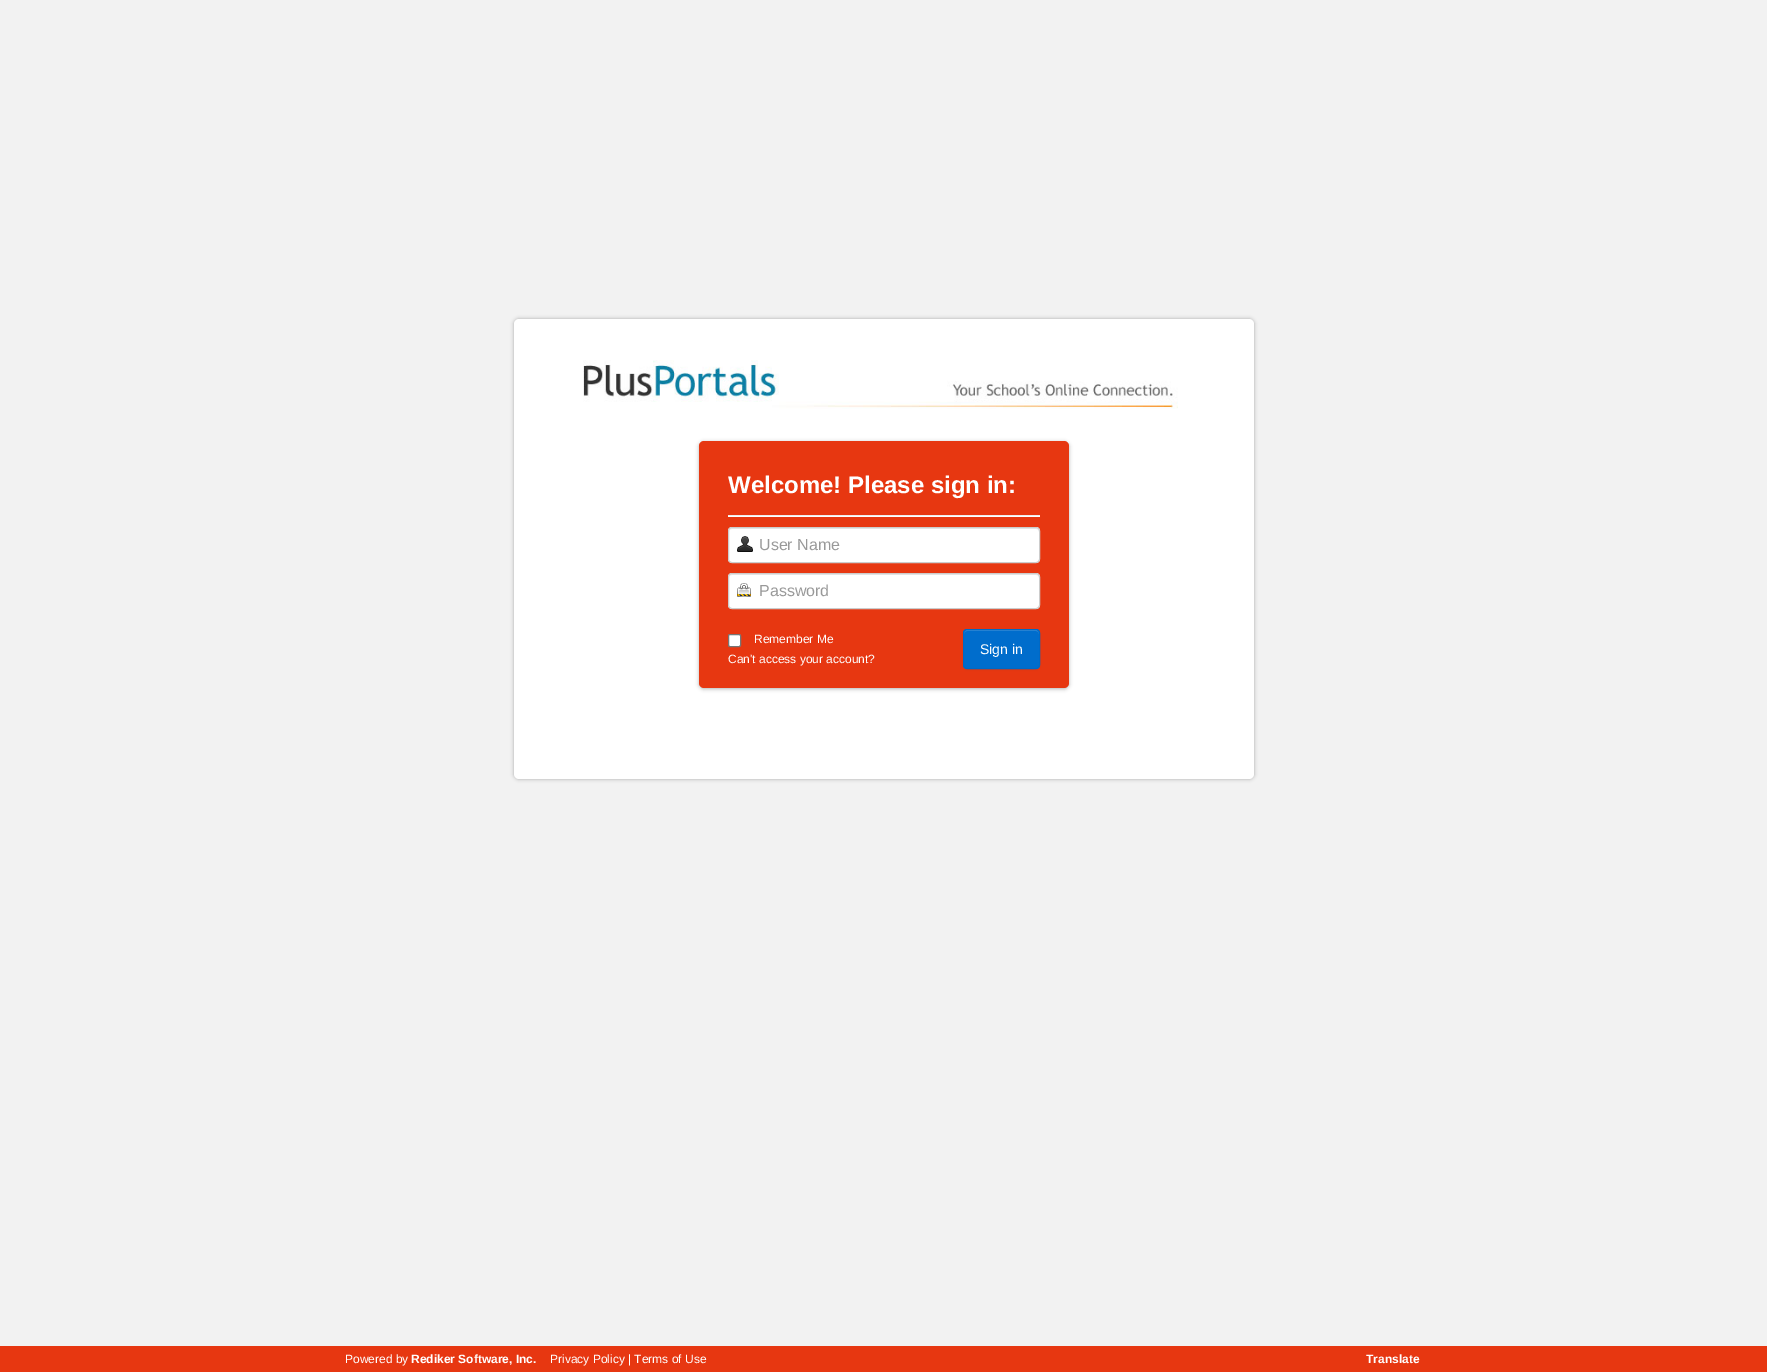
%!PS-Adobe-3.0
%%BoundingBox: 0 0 1767 1372
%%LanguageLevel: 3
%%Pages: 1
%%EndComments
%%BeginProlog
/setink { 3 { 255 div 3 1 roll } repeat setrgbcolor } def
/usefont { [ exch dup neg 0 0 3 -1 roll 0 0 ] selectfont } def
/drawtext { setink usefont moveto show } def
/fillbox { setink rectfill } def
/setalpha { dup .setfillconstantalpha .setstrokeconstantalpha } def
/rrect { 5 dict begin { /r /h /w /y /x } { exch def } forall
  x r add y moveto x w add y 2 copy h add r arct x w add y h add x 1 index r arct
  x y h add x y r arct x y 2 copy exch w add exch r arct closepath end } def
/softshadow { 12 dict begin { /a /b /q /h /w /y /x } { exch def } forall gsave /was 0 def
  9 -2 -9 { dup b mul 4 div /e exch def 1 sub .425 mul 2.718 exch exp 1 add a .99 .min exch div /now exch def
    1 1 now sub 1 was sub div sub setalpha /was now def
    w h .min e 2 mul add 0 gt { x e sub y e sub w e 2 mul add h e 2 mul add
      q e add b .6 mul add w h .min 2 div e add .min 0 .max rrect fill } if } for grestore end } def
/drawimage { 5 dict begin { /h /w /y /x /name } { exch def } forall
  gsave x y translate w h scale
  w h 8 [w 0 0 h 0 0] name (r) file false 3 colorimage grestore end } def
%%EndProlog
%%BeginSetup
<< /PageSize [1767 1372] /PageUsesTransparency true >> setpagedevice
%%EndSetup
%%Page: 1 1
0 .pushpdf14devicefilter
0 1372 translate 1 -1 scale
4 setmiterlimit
0 0 1767 1372 242 242 242 fillbox
0 0 0 setink
514 319 740 460 5 2 0.3 softshadow
255 255 255 setink
514 319 740 460 5 rrect fill
(assets/img1.rgb) 583 360 595 49 drawimage
0 0 0 setink
699 442 370 247 5 2 0.3 softshadow
231 55 17 setink
699 441 370 247 5 rrect fill
(Welcome! Please sign in:) 728 493 /LiberationSans-Bold 24 255 255 255 drawtext
728 515 312 1 238 238 238 fillbox
728 516 312 1 255 255 255 fillbox
728 527 312 36 4 rrect fill
(assets/img2.rgb) 737 536 16 16 drawimage
236 236 236 setink
732 529 moveto 1036 529 lineto 1038 529 1039 530 1039 532 curveto 1038 529 lineto 1037 528 lineto 732 528 lineto 730 528 729 530 729 532 curveto 729 530 730 529 732 529 curveto closepath fill
204 204 204 setink
728.5 527.5 311 35 3.5 rrect stroke
(User Name) 759 550 /LiberationSans-Regular 16 153 153 153 drawtext
255 255 255 setink
728 573 312 36 4 rrect fill
(assets/img3.rgb) 737 583 14 14 drawimage
236 236 236 setink
732 575 moveto 1036 575 lineto 1038 575 1039 576 1039 578 curveto 1038 575 lineto 1037 574 lineto 732 574 lineto 730 574 729 576 729 578 curveto 729 576 730 575 732 575 curveto closepath fill
204 204 204 setink
728.5 573.5 311 35 3.5 rrect stroke
(Password) 759 596 /LiberationSans-Regular 16 153 153 153 drawtext
255 255 255 setink
728.5 634.5 12 12 1.5 rrect gsave fill grestore
118 118 118 setink
stroke
(Remember Me) 754 643 /LiberationSans-Regular 12 255 255 255 drawtext
(Can't access your account?) 728 663 /LiberationSans-Regular 12 255 255 255 drawtext
0 0 0 setink
963 630 77 40 4 1 0.05 softshadow
0 109 204 setink
963 629 77 40 4 rrect fill
51 138 214 setink
967 631 moveto 1036 631 lineto 1038 631 1039 632 1039 634 curveto 1039 627 1029 630 1024 630 curveto 978 630 lineto 974 630 964 627 964 634 curveto 964 632 965 631 967 631 curveto closepath fill
0 105 197 setink
963.5 629.5 76 39 3.5 rrect stroke
(Sign in) 980 654 /LiberationSans-Regular 14 255 255 255 drawtext
0 1346 1767 26 231 55 17 fillbox
(Powered by) 345 1363 /LiberationSans-Regular 12 255 255 255 drawtext
(Rediker Software, Inc.) 411 1363 /LiberationSans-Bold 12 255 255 255 drawtext
(Privacy Policy | Terms of Use) 550 1363 /LiberationSans-Regular 12 255 255 255 drawtext
(Translate) 1366 1363 /LiberationSans-Bold 12 255 255 255 drawtext
.poppdf14devicefilter showpage
%%EOF
